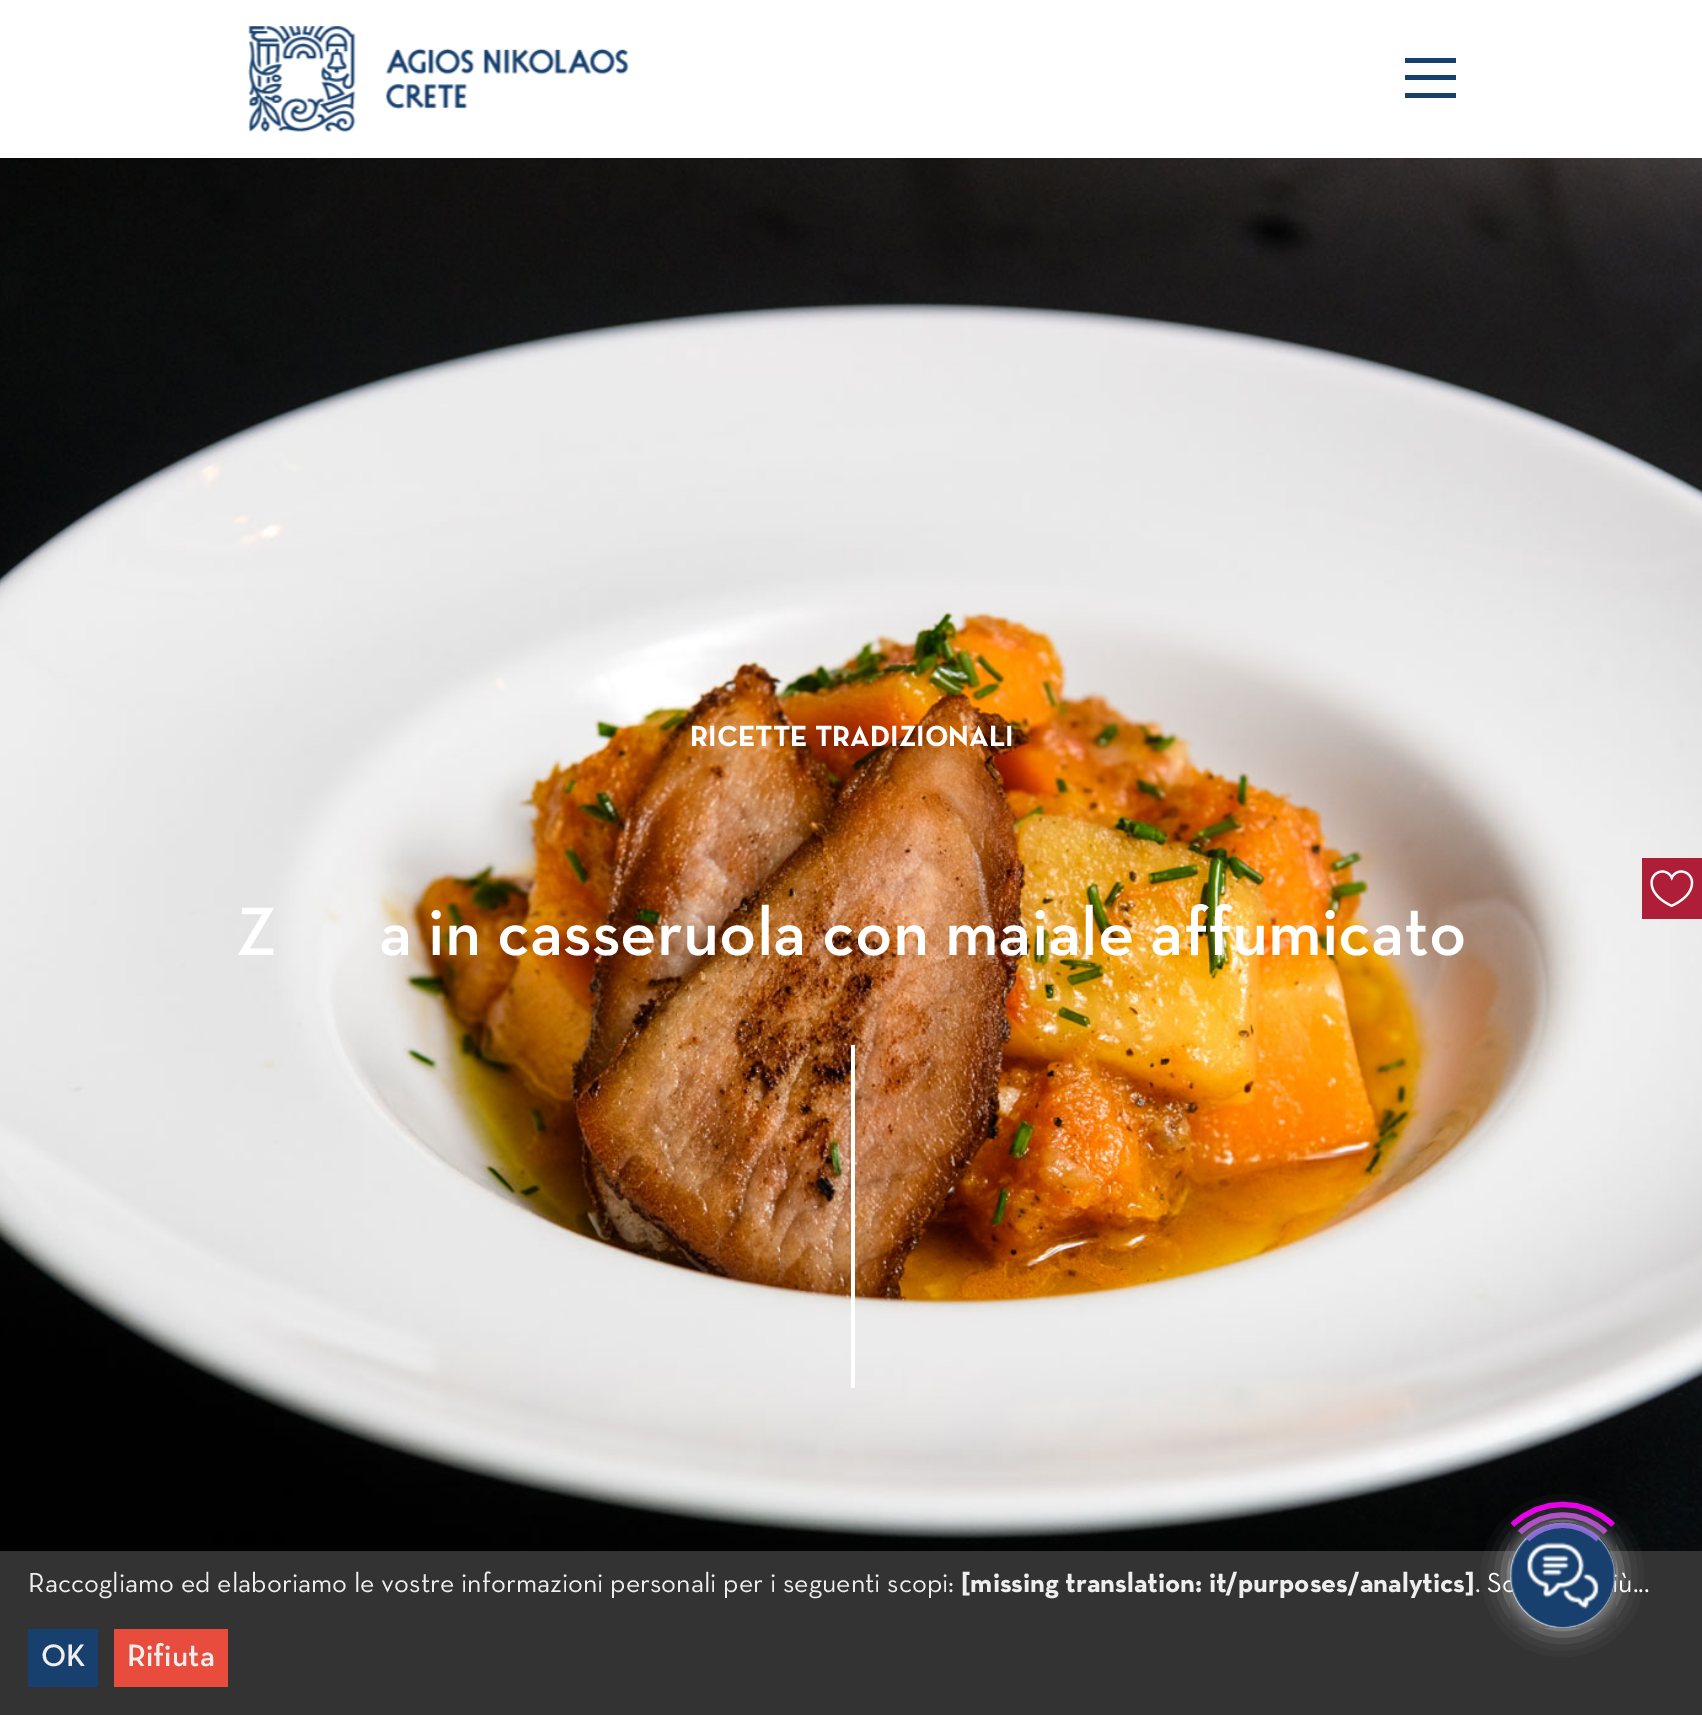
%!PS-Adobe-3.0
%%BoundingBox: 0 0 1702 1715
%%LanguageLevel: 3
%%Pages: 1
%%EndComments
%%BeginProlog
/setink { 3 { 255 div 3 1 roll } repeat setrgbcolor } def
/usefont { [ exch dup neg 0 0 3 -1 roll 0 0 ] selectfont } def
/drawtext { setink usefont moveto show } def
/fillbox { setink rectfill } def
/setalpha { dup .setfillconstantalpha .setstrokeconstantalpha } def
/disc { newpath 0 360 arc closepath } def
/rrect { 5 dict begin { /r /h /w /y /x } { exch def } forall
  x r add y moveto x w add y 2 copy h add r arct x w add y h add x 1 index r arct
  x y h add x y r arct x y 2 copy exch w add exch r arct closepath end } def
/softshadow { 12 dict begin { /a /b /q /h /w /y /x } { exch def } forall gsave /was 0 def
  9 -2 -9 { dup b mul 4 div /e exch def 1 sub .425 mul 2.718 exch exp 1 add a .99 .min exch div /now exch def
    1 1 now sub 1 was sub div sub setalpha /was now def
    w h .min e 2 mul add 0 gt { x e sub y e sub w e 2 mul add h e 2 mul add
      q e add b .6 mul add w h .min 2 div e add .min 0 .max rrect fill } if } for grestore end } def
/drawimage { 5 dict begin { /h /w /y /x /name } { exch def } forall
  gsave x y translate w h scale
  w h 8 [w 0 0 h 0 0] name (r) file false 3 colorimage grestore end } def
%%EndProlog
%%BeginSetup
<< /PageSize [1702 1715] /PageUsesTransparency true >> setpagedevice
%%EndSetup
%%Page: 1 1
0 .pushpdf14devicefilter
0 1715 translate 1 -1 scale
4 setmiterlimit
0 0 1702 1715 255 255 255 fillbox
(assets/img1.rgb) 248 26 381 106 drawimage
1405 75 51 5 23 64 110 fillbox
1405 58 51 5 23 64 110 fillbox
1405 93 51 5 23 64 110 fillbox
(assets/img2.rgb) 0 158 1702 1393 drawimage
(RICETTE TRADIZIONALI) 690 746 /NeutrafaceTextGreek-Bold 29.6 255 255 255 drawtext
(Z) 236 955 /NeutrafaceTextGreek-SemiBold 69.5 255 255 255 drawtext
(a in casseruola con maiale affumicato) 379 955 /NeutrafaceTextGreek-SemiBold 69.5 255 255 255 drawtext
851 1045 4 343 255 255 255 fillbox
1642 858 60 61 174 30 56 fillbox
(assets/img3.rgb) 1650 870 44 38 drawimage
0 1551 1702 164 51 51 51 fillbox
204 204 204 setink
1510 1523 105 105 52.5 13 1 softshadow
255 255 255 setink
1562.5 1575.5 52.5 disc fill
(Sc) 1487 1592 /NeutrafaceTextGreek-Regular 28 255 255 255 drawtext
(iù...) 1612 1592 /NeutrafaceTextGreek-Regular 28 255 255 255 drawtext
(assets/img4.rgb) 1510 1522 106 106 drawimage
0.9 setalpha
147 112 219 setink
5.2 setlinewidth
1527.5 1539.5 moveto 1546.5 1520.5 1579 1520.5 1598 1539.5 curveto stroke
186 85 211 setink
1520 1532.5 moveto 1543.5 1509 1582 1509 1605.5 1532.5 curveto stroke
255 0 255 setink
1512.5 1525 moveto 1540 1497.5 1585.5 1497.5 1613 1525 curveto stroke
1 setalpha
(Raccogliamo ed elaboriamo le vostre informazioni personali per i seguenti scopi:) 28 1592 /NeutrafaceTextGreek-Regular 28 238 238 238 drawtext
([missing translation: it/purposes/analytics]) 961 1592 /NeutrafaceTextGreek-Bold 28 238 238 238 drawtext
(.) 1475 1592 /NeutrafaceTextGreek-Regular 28 238 238 238 drawtext
28 1629 70 58 23 64 110 fillbox
(OK) 41 1666 /NeutrafaceTextGreek-SemiBold 31.5 238 238 238 drawtext
114 1629 114 58 231 76 60 fillbox
(Rifiuta) 127 1666 /NeutrafaceTextGreek-SemiBold 31.5 238 238 238 drawtext
.poppdf14devicefilter showpage
%%EOF
